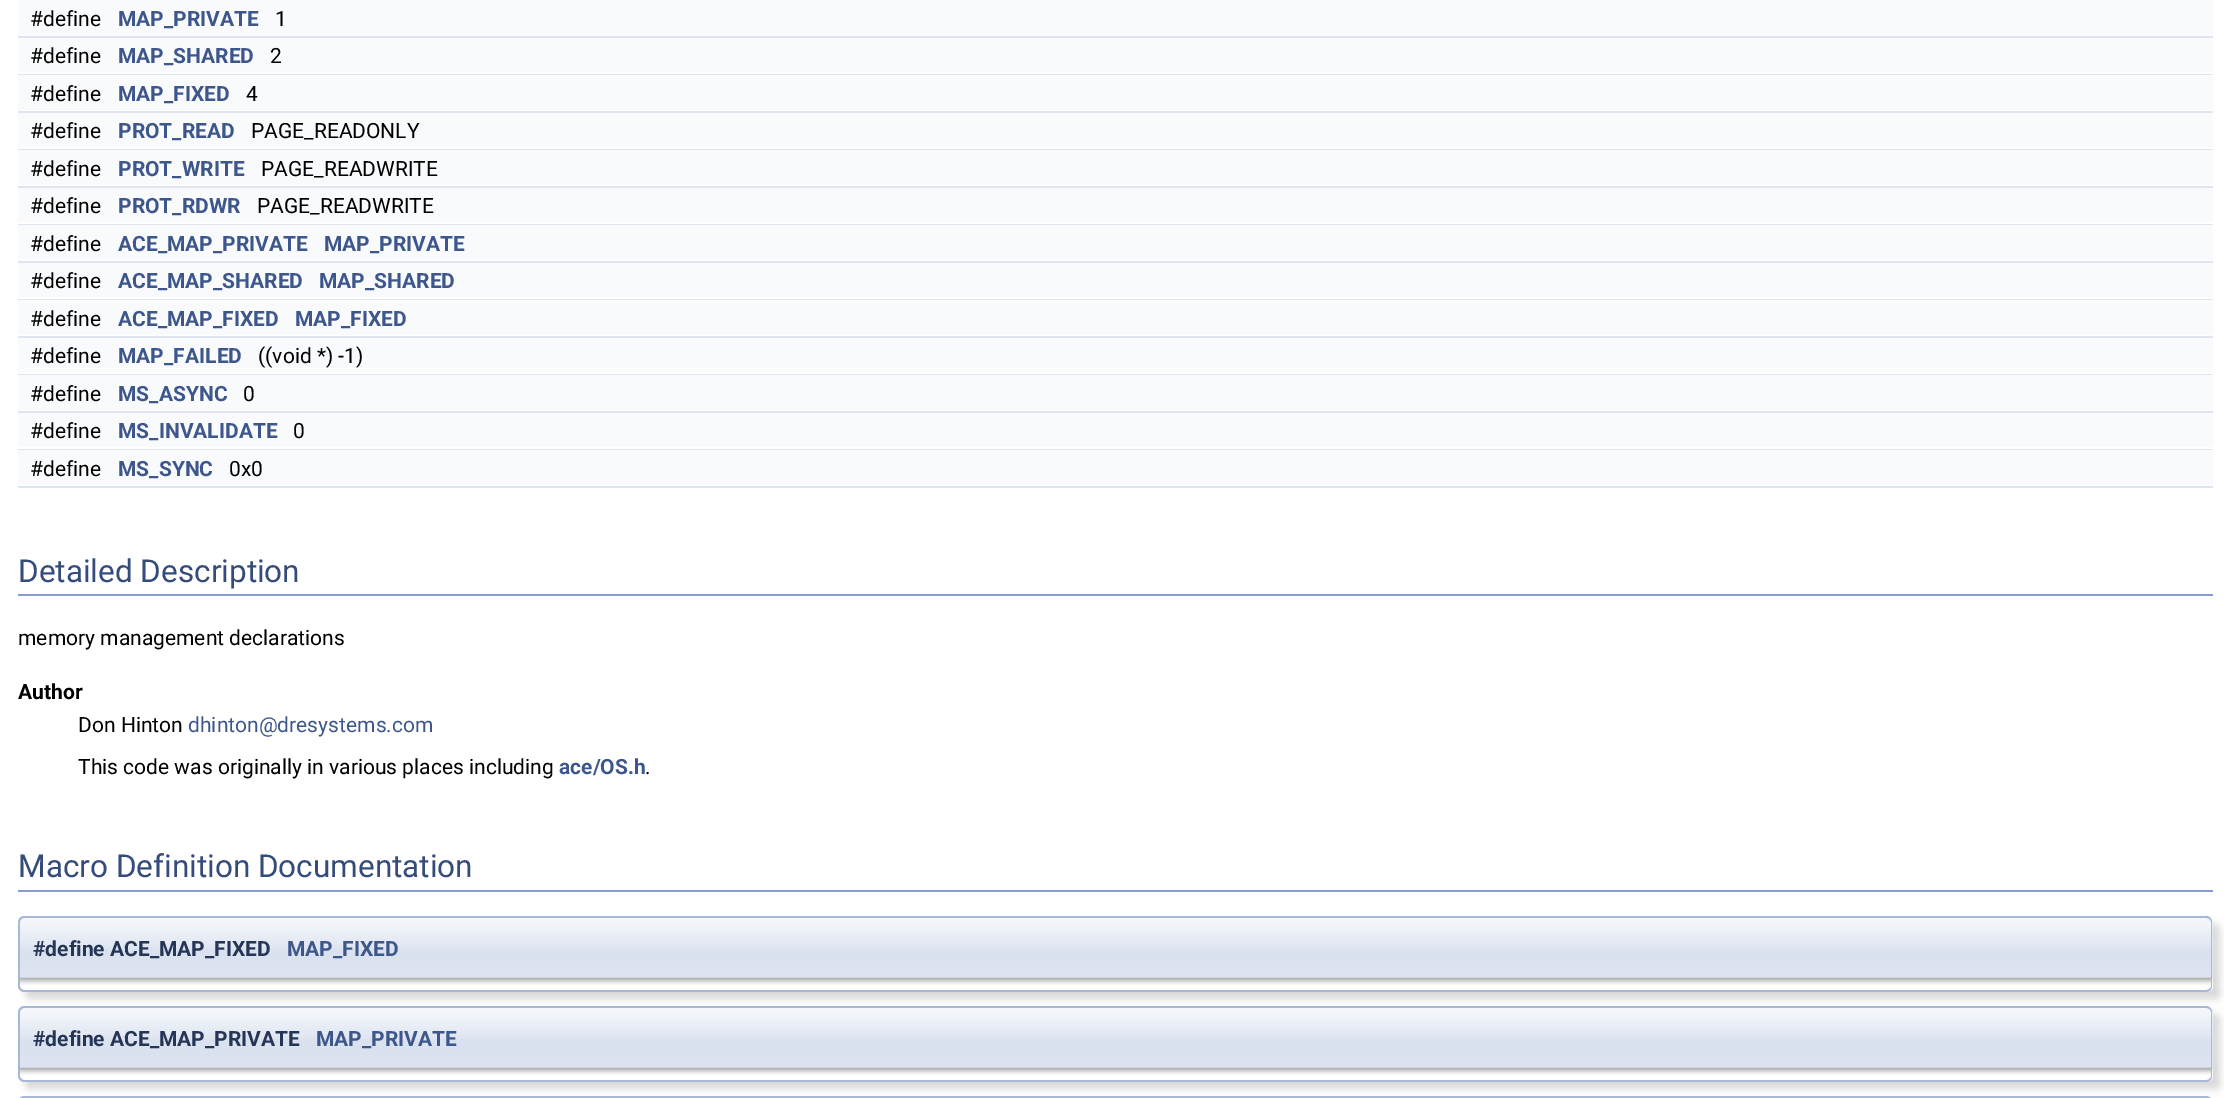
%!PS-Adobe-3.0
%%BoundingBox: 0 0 2224 1098
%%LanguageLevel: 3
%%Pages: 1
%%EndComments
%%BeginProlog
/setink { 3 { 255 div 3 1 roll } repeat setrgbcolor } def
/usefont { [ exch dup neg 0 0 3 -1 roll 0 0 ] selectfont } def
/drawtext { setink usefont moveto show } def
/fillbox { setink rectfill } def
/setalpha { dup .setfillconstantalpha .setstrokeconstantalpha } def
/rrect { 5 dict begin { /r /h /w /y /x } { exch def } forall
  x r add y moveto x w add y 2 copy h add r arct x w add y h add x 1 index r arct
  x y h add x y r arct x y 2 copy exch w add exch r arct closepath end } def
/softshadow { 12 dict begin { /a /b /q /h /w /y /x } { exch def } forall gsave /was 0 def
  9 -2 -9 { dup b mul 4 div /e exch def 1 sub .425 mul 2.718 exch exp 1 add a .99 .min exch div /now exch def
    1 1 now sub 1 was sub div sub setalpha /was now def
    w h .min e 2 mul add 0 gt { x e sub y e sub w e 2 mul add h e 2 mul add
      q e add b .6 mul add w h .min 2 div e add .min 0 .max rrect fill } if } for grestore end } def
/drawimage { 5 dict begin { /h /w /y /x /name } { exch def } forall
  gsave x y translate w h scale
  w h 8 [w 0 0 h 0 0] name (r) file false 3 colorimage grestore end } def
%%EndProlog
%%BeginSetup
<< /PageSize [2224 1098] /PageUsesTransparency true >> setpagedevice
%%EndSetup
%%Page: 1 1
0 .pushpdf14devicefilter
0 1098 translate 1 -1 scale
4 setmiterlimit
0 0 2224 1098 255 255 255 fillbox
18 0 2195 35 249 250 252 fillbox
(#define) 30 26 /Roboto-Regular 21 0 0 0 drawtext
(MAP_PRIVATE) 118 26 /Roboto-Bold 21 61 87 140 drawtext
(1) 275 26 /Roboto-Regular 21 0 0 0 drawtext
18 36 2195 2 222 228 240 fillbox
18 38 2195 34 249 250 252 fillbox
(#define) 30 63 /Roboto-Regular 21 0 0 0 drawtext
(MAP_SHARED) 118 63 /Roboto-Bold 21 61 87 140 drawtext
(2) 270 63 /Roboto-Regular 21 0 0 0 drawtext
18 74 2195 1 222 228 240 fillbox
18 75 2195 35 249 250 252 fillbox
(#define) 30 101 /Roboto-Regular 21 0 0 0 drawtext
(MAP_FIXED) 118 101 /Roboto-Bold 21 61 87 140 drawtext
(4) 246 101 /Roboto-Regular 21 0 0 0 drawtext
18 111 2195 2 222 228 240 fillbox
18 113 2195 34 249 250 252 fillbox
(#define) 30 138 /Roboto-Regular 21 0 0 0 drawtext
(PROT_READ) 118 138 /Roboto-Bold 21 61 87 140 drawtext
(PAGE_READONLY) 251 138 /Roboto-Regular 21 0 0 0 drawtext
18 149 2195 1 222 228 240 fillbox
18 150 2195 35 249 250 252 fillbox
(#define) 30 176 /Roboto-Regular 21 0 0 0 drawtext
(PROT_WRITE) 118 176 /Roboto-Bold 21 61 87 140 drawtext
(PAGE_READWRITE) 261 176 /Roboto-Regular 21 0 0 0 drawtext
18 186 2195 2 222 228 240 fillbox
18 188 2195 34 249 250 252 fillbox
(#define) 30 213 /Roboto-Regular 21 0 0 0 drawtext
(PROT_RDWR) 118 213 /Roboto-Bold 21 61 87 140 drawtext
(PAGE_READWRITE) 257 213 /Roboto-Regular 21 0 0 0 drawtext
18 224 2195 1 222 228 240 fillbox
18 225 2195 35 249 250 252 fillbox
(#define) 30 251 /Roboto-Regular 21 0 0 0 drawtext
(ACE_MAP_PRIVATE) 118 251 /Roboto-Bold 21 61 87 140 drawtext
(MAP_PRIVATE) 324 251 /Roboto-Bold 21 61 87 140 drawtext
18 261 2195 2 222 228 240 fillbox
18 263 2195 34 249 250 252 fillbox
(#define) 30 288 /Roboto-Regular 21 0 0 0 drawtext
(ACE_MAP_SHARED) 118 288 /Roboto-Bold 21 61 87 140 drawtext
(MAP_SHARED) 319 288 /Roboto-Bold 21 61 87 140 drawtext
18 299 2195 1 222 228 240 fillbox
18 300 2195 35 249 250 252 fillbox
(#define) 30 326 /Roboto-Regular 21 0 0 0 drawtext
(ACE_MAP_FIXED) 118 326 /Roboto-Bold 21 61 87 140 drawtext
(MAP_FIXED) 295 326 /Roboto-Bold 21 61 87 140 drawtext
18 336 2195 2 222 228 240 fillbox
18 338 2195 34 249 250 252 fillbox
(#define) 30 363 /Roboto-Regular 21 0 0 0 drawtext
(MAP_FAILED) 118 363 /Roboto-Bold 21 61 87 140 drawtext
(\(\(void *\) -1\)) 258 363 /Roboto-Regular 21 0 0 0 drawtext
18 374 2195 1 222 228 240 fillbox
18 375 2195 35 249 250 252 fillbox
(#define) 30 401 /Roboto-Regular 21 0 0 0 drawtext
(MS_ASYNC) 118 401 /Roboto-Bold 21 61 87 140 drawtext
(0) 243 401 /Roboto-Regular 21 0 0 0 drawtext
18 411 2195 2 222 228 240 fillbox
18 413 2195 34 249 250 252 fillbox
(#define) 30 438 /Roboto-Regular 21 0 0 0 drawtext
(MS_INVALIDATE) 118 438 /Roboto-Bold 21 61 87 140 drawtext
(0) 293 438 /Roboto-Regular 21 0 0 0 drawtext
18 449 2195 1 222 228 240 fillbox
18 450 2195 35 249 250 252 fillbox
(#define) 30 476 /Roboto-Regular 21 0 0 0 drawtext
(MS_SYNC) 118 476 /Roboto-Bold 21 61 87 140 drawtext
(0x0) 229 476 /Roboto-Regular 21 0 0 0 drawtext
18 486 2195 2 222 228 240 fillbox
18 594 2195 2 135 158 203 fillbox
(Detailed Description) 18 582 /Roboto-Regular 31.5 53 76 123 drawtext
(memory management declarations) 18 645 /Roboto-Regular 21 0 0 0 drawtext
(Author) 18 699 /Roboto-Bold 21 0 0 0 drawtext
(Don Hinton) 78 732 /Roboto-Regular 21 0 0 0 drawtext
(dhinton@dresystems.com) 188 732 /Roboto-Regular 21 61 87 140 drawtext
(This code was originally in various places including) 78 774 /Roboto-Regular 21 0 0 0 drawtext
(ace/OS.h) 559 774 /Roboto-Bold 21 61 87 140 drawtext
(.) 645 774 /Roboto-Regular 21 0 0 0 drawtext
18 890 2195 2 135 158 203 fillbox
(Macro Definition Documentation) 18 877 /Roboto-Regular 31.5 53 76 123 drawtext
0 0 0 setink
26 924 2194 62 6 4 0.15 softshadow
226 232 242 setink
24 917 moveto 2207 917 lineto 2210.5 917 2213 919.5 2213 923 curveto 2213 978 lineto 18 978 lineto 18 923 lineto 18 919.5 20.5 917 24 917 curveto closepath fill
(assets/img1.rgb) 18 917 2195 60 drawimage
168 184 217 setink
24 916 moveto 2206 916 lineto 2210 916 2212 919 2212 922 curveto 2212 978 lineto 18 978 lineto 18 922 lineto 18 919 21 916 24 916 curveto closepath 24 918 moveto 2206 918 lineto 2209 918 2211 920 2211 922 curveto 2211 978 lineto 20 978 lineto 20 922 lineto 20 920 22 918 24 918 curveto closepath eofill
(#define ACE_MAP_FIXED) 33 956 /Roboto-Bold 21 37 53 85 drawtext
(MAP_FIXED) 287 956 /Roboto-Bold 21 61 87 140 drawtext
0 0 0 setink
26 986 2194 13 6 4 0.15 softshadow
255 255 255 setink
18 978 moveto 2213 978 lineto 2213 986 lineto 2213 989.5 2210.5 992 2207 992 curveto 24 992 lineto 20.5 992 18 989.5 18 986 curveto closepath fill
(assets/img2.rgb) 18 977 2195 8 drawimage
168 184 217 setink
18 978 moveto 2212 978 lineto 2212 986 lineto 2212 989 2210 992 2206 992 curveto 24 992 lineto 21 992 18 989 18 986 curveto closepath 20 978 moveto 2211 978 lineto 2211 986 lineto 2211 988 2209 990 2206 990 curveto 24 990 lineto 22 990 20 988 20 986 curveto closepath eofill
0 0 0 setink
26 1014 2194 62 6 4 0.15 softshadow
226 232 242 setink
24 1007 moveto 2207 1007 lineto 2210.5 1007 2213 1009.5 2213 1013 curveto 2213 1068 lineto 18 1068 lineto 18 1013 lineto 18 1009.5 20.5 1007 24 1007 curveto closepath fill
(assets/img3.rgb) 18 1007 2195 60 drawimage
168 184 217 setink
24 1006 moveto 2206 1006 lineto 2210 1006 2212 1009 2212 1012 curveto 2212 1068 lineto 18 1068 lineto 18 1012 lineto 18 1009 21 1006 24 1006 curveto closepath 24 1008 moveto 2206 1008 lineto 2209 1008 2211 1010 2211 1012 curveto 2211 1068 lineto 20 1068 lineto 20 1012 lineto 20 1010 22 1008 24 1008 curveto closepath eofill
(#define ACE_MAP_PRIVATE) 33 1046 /Roboto-Bold 21 37 53 85 drawtext
(MAP_PRIVATE) 316 1046 /Roboto-Bold 21 61 87 140 drawtext
0 0 0 setink
26 1076 2194 13 6 4 0.15 softshadow
255 255 255 setink
18 1068 moveto 2213 1068 lineto 2213 1076 lineto 2213 1079.5 2210.5 1082 2207 1082 curveto 24 1082 lineto 20.5 1082 18 1079.5 18 1076 curveto closepath fill
(assets/img2.rgb) 18 1067 2195 8 drawimage
168 184 217 setink
18 1068 moveto 2212 1068 lineto 2212 1076 lineto 2212 1079 2210 1082 2206 1082 curveto 24 1082 lineto 21 1082 18 1079 18 1076 curveto closepath 20 1068 moveto 2211 1068 lineto 2211 1076 lineto 2211 1078 2209 1080 2206 1080 curveto 24 1080 lineto 22 1080 20 1078 20 1076 curveto closepath eofill
24 1096 moveto 2206 1096 lineto 2210 1096 2212 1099 2212 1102 curveto 2212 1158 lineto 18 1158 lineto 18 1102 lineto 18 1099 21 1096 24 1096 curveto closepath 24 1098 moveto 2206 1098 lineto 2209 1098 2211 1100 2211 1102 curveto 2211 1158 lineto 20 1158 lineto 20 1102 lineto 20 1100 22 1098 24 1098 curveto closepath eofill
.poppdf14devicefilter showpage
%%EOF
